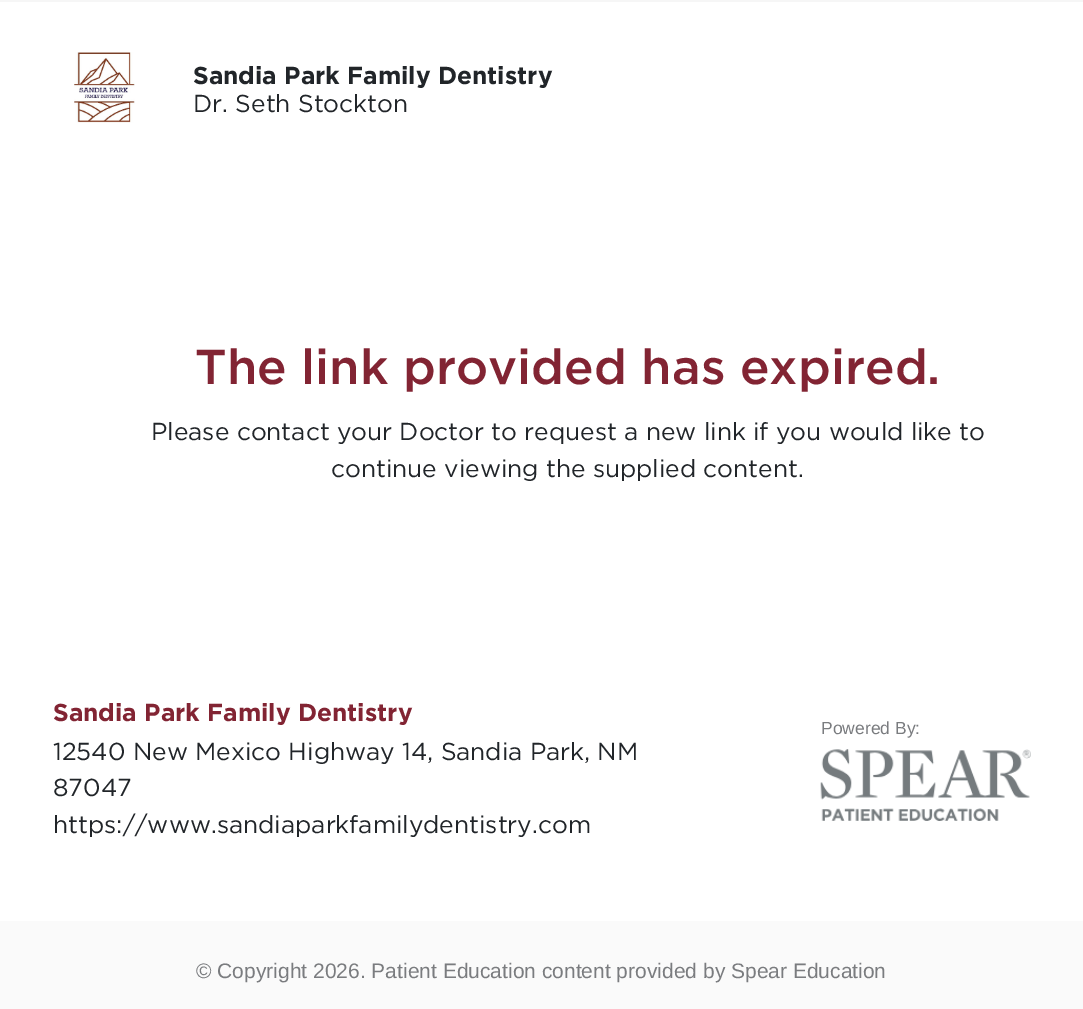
%!PS-Adobe-3.0
%%BoundingBox: 0 0 1083 1009
%%LanguageLevel: 3
%%Pages: 1
%%EndComments
%%BeginProlog
/setink { 3 { 255 div 3 1 roll } repeat setrgbcolor } def
/usefont { [ exch dup neg 0 0 3 -1 roll 0 0 ] selectfont } def
/drawtext { setink usefont moveto show } def
/fillbox { setink rectfill } def
/drawimage { 5 dict begin { /h /w /y /x /name } { exch def } forall
  gsave x y translate w h scale
  w h 8 [w 0 0 h 0 0] name (r) file false 3 colorimage grestore end } def
%%EndProlog
%%BeginSetup
<< /PageSize [1083 1009] >> setpagedevice
%%EndSetup
%%Page: 1 1
0 1009 translate 1 -1 scale
4 setmiterlimit
0 0 1083 1009 255 255 255 fillbox
0 0 1083 2 246 246 246 fillbox
(assets/img1.rgb) 74 52 61 71 drawimage
(Sandia Park Family Dentistry) 193 84 /Gotham-Bold 24.5 33 37 41 drawtext
(Dr. Seth Stockton) 193 112 /Gotham-Regular 24.5 33 37 41 drawtext
(The link provided has expired.) 195 384 /Gotham-Medium 49 130 36 51 drawtext
(Please contact your Doctor to request a new link if you would like to) 151 440 /Gotham-Regular 24.5 33 37 41 drawtext
(continue viewing the supplied content.) 331 477 /Gotham-Regular 24.5 33 37 41 drawtext
(Sandia Park Family Dentistry) 53 721 /Gotham-Bold 24.5 130 36 51 drawtext
(12540 New Mexico Highway 14, Sandia Park, NM) 53 760 /Gotham-Regular 24.5 33 37 41 drawtext
(87047) 53 796 /Gotham-Regular 24.5 33 37 41 drawtext
(https://www.sandiaparkfamilydentistry.com) 53 833 /Gotham-Regular 24.5 33 37 41 drawtext
(Powered By:) 821 734 /LiberationSans-Regular 17.5 122 124 127 drawtext
(assets/img2.rgb) 820 749 211 72 drawimage
0 921 1083 88 250 250 250 fillbox
(© Copyright 2026. Patient Education content provided by Spear Education) 196 978 /LiberationSans-Regular 21 122 124 127 drawtext
showpage
%%EOF
